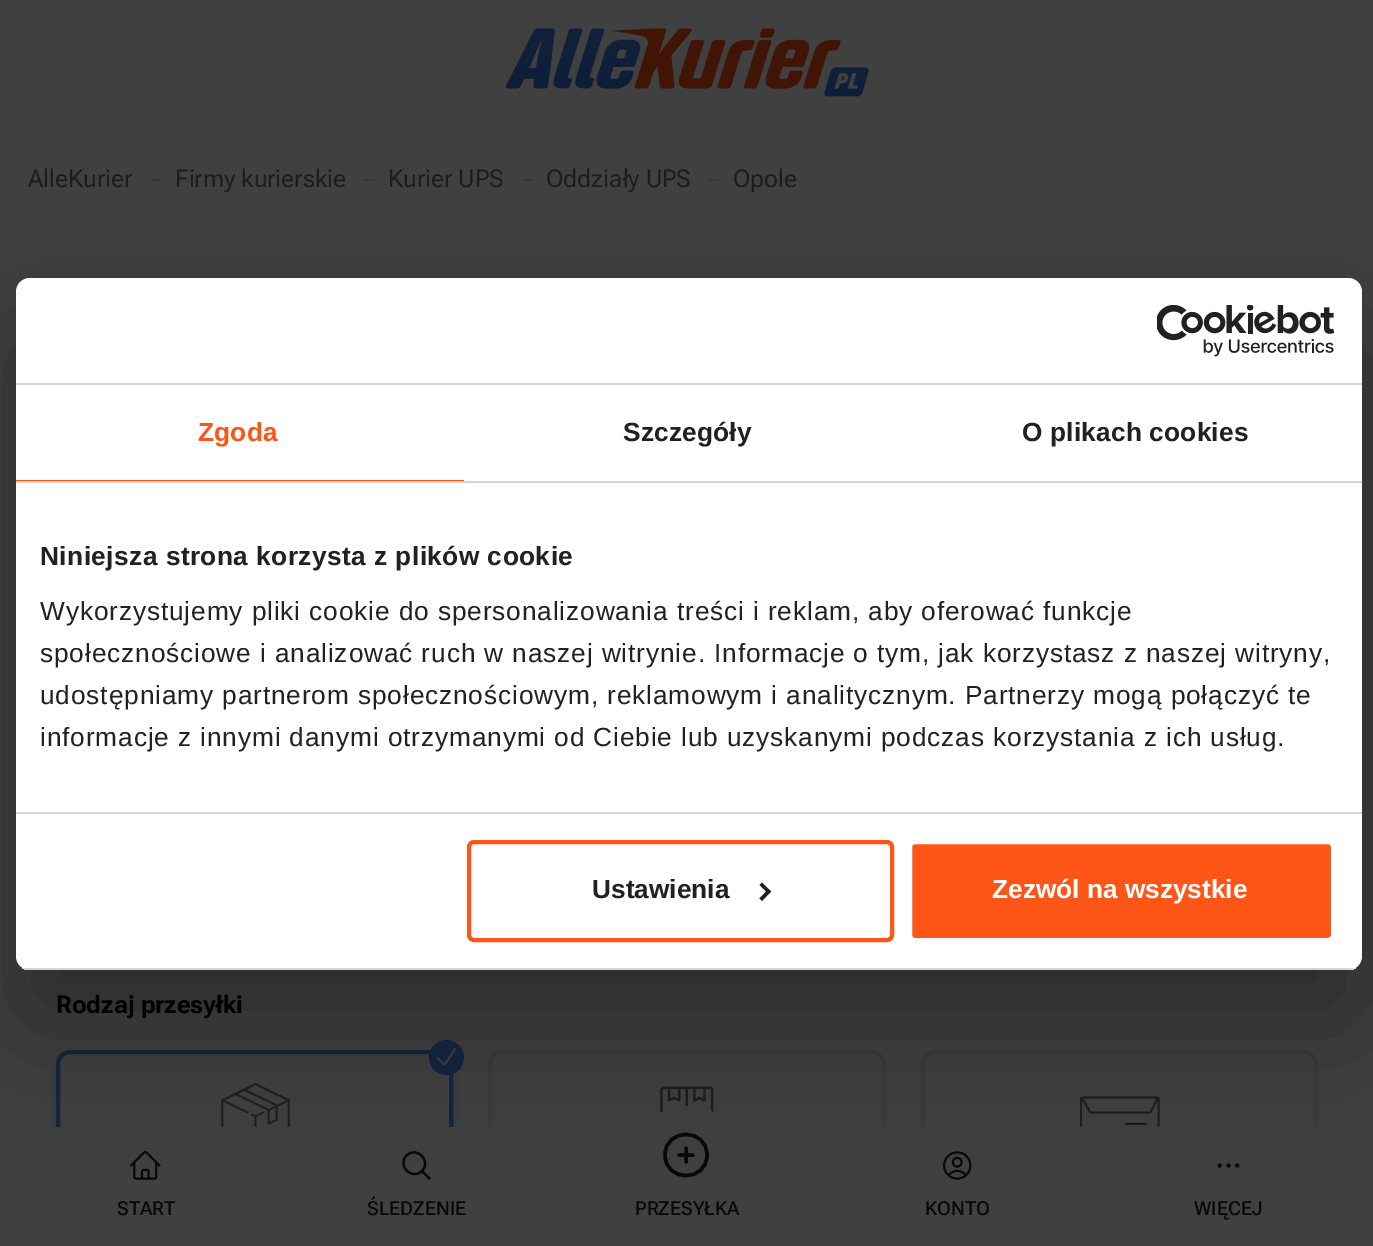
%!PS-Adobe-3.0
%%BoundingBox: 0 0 1373 1246
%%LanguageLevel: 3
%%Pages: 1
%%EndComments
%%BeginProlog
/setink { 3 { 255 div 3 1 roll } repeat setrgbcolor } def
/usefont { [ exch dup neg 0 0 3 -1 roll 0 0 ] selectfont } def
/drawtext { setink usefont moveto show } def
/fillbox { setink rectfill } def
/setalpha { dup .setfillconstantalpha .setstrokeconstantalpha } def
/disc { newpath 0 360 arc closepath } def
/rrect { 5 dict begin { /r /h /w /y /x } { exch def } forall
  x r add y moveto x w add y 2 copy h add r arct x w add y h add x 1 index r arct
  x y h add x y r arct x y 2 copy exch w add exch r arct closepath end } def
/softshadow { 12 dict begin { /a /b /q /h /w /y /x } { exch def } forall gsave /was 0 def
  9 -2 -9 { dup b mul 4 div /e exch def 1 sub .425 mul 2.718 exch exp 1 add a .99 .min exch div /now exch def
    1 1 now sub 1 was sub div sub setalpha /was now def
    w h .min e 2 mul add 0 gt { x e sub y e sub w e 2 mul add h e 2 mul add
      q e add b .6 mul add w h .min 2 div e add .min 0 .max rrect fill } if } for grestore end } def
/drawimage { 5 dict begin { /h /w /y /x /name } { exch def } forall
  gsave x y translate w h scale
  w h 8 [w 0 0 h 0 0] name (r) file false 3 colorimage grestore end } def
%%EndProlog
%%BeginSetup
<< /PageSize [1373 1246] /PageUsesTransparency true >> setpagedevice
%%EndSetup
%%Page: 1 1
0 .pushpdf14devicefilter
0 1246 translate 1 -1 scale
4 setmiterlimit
0 0 1373 1246 64 64 64 fillbox
(assets/img1.rgb) 506 28 363 69 drawimage
(AlleKurier) 28 187 /RobotoFlex-Regular 24.5 27 29 32 drawtext
151 179 10 2 52 53 55 fillbox
(Firmy kurierskie) 175 187 /RobotoFlex-Regular 24.5 27 29 32 drawtext
364 179 11 2 52 53 55 fillbox
(Kurier UPS) 388 187 /RobotoFlex-Regular 24.5 27 29 32 drawtext
522 179 10 2 52 53 55 fillbox
(Oddziały UPS) 546 187 /RobotoFlex-Regular 24.5 27 29 32 drawtext
709 179 10 2 52 53 55 fillbox
(Opole) 733 187 /RobotoFlex-Regular 24.5 27 29 32 drawtext
(Rodzaj przesyłki) 56 1013 /RobotoFlex-Bold 24.5 0 0 0 drawtext
gsave
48 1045 moveto 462 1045 lineto 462 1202 lineto 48 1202 lineto closepath 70 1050 moveto 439 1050 lineto 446.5 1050 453 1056.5 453 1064 curveto 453 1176 lineto 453 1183.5 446.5 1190 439 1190 curveto 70 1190 lineto 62.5 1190 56 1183.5 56 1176 curveto 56 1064 lineto 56 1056.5 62.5 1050 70 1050 curveto closepath eoclip newpath
38 50 63 setink
60 1057 390 133 11 3.5 1 softshadow
grestore
gsave
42 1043 moveto 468 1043 lineto 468 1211 lineto 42 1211 lineto closepath 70 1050 moveto 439 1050 lineto 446.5 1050 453 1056.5 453 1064 curveto 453 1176 lineto 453 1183.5 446.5 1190 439 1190 curveto 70 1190 lineto 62.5 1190 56 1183.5 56 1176 curveto 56 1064 lineto 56 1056.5 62.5 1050 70 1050 curveto closepath eoclip newpath
38 50 63 setink
58 1059 394 136 12 5 1 softshadow
grestore
19 37 62 setink
4 setlinewidth
58 1052 393 136 12 rrect stroke
446.5 1057.5 17.5 disc fill
64 64 64 setink
1.7 setlinewidth
1 setlinecap
1 setlinejoin
437.5 1058 moveto 444.5 1065 lineto 455 1049 lineto stroke
(assets/img2.rgb) 221 1083 69 44 drawimage
57 58 59 setink
4 setlinewidth
0 setlinecap
0 setlinejoin
490 1052 394 136 12 rrect stroke
(assets/img3.rgb) 660 1086 54 28 drawimage
923 1052 393 136 12 rrect stroke
(assets/img4.rgb) 1080 1096 80 31 drawimage
51 1127 1267 74 64 64 64 fillbox
(assets/img6.rgb) 129 1150 32 30 drawimage
8 8 8 setink
2.2 setlinewidth
1 setlinecap
1 setlinejoin
429.5 1178.5 moveto 422 1171 lineto 422 1171 moveto 432 1161 416.5 1145.5 406.5 1155.5 curveto 396.5 1165.5 412 1181 422 1171 curveto closepath stroke
64 64 64 setink
688 1162 56 disc fill
8 8 8 setink
3.5 setlinewidth
686 1148 moveto 686 1162 lineto 693 1155 moveto 679 1155 lineto 707 1155 moveto 707 1182.5 665 1182.5 665 1155 curveto 665 1127.5 707 1127.5 707 1155 curveto closepath stroke
(assets/img7.rgb) 943 1151 29 29 drawimage
(assets/img8.rgb) 1217 1163 23 5 drawimage
0 0 0 setink
16 334 1346 692 14 59.5 0.3 softshadow
255 255 255 setink
16 278 1346 692 14 rrect fill
16 383 1346 2 214 214 214 fillbox
(assets/img5.rgb) 1157 305 178 52 drawimage
16 481 1346 2 214 214 214 fillbox
16 480 448 1 255 85 23 fillbox
/LiberationSans-Bold 26.25 usefont
198 441 moveto 0.2 0 (Zgoda) ashow
33 33 33 setink
623 441 moveto 0.2 0 (Szczegóły) ashow
1022 441 moveto 0.2 0 (O plikach cookies) ashow
16 812 1346 2 214 214 214 fillbox
33 33 33 setink
40 565 moveto 0.45 0 (Niniejsza strona korzysta z plików cookie) ashow
/LiberationSans-Regular 26.25 usefont
40 620 moveto 0.88 0 (Wykorzystujemy pliki cookie do spersonalizowania treści i reklam, aby oferować funkcje) ashow
40 662 moveto 0.88 0 (społecznościowe i analizować ruch w naszej witrynie. Informacje o tym, jak korzystasz z naszej witryny,) ashow
40 704 moveto 0.88 0 (udostępniamy partnerom społecznościowym, reklamowym i analitycznym. Partnerzy mogą połączyć te) ashow
40 746 moveto 0.88 0 (informacje z innymi danymi otrzymanymi od Ciebie lub uzyskanymi podczas korzystania z ich usług.) ashow
gsave
16 278 1346 692 14 rrect clip newpath
16 968 1346 2 214 214 214 fillbox
grestore
255 85 23 setink
4 setlinewidth
0 setlinecap
0 setlinejoin
469 842 423 98 5 rrect stroke
(Ustawienia) 592 898 /LiberationSans-Bold 26.25 33 33 33 drawtext
762 882.5 moveto 771 891.5 lineto 768.5 894 lineto 759.5 885 lineto closepath fill
768.5 889 moveto 771 891.5 lineto 762 901 lineto 759.5 898.5 lineto closepath fill
255 85 23 setink
910 842 423 98 5 rrect gsave fill grestore
255 255 255 setink
stroke
(Zezwól na wszystkie) 992 898 /LiberationSans-Bold 26.25 255 255 255 drawtext
(START) 117 1215 /RobotoFlex-Medium 19.25 8 8 8 drawtext
(ŚLEDZENIE) 367 1215 /RobotoFlex-Medium 19.25 8 8 8 drawtext
(PRZESYŁKA) 635 1215 /RobotoFlex-Medium 19.25 8 8 8 drawtext
(KONTO) 925 1215 /RobotoFlex-Medium 19.25 8 8 8 drawtext
(WIĘCEJ) 1194 1215 /RobotoFlex-Medium 19.25 8 8 8 drawtext
.poppdf14devicefilter showpage
%%EOF
